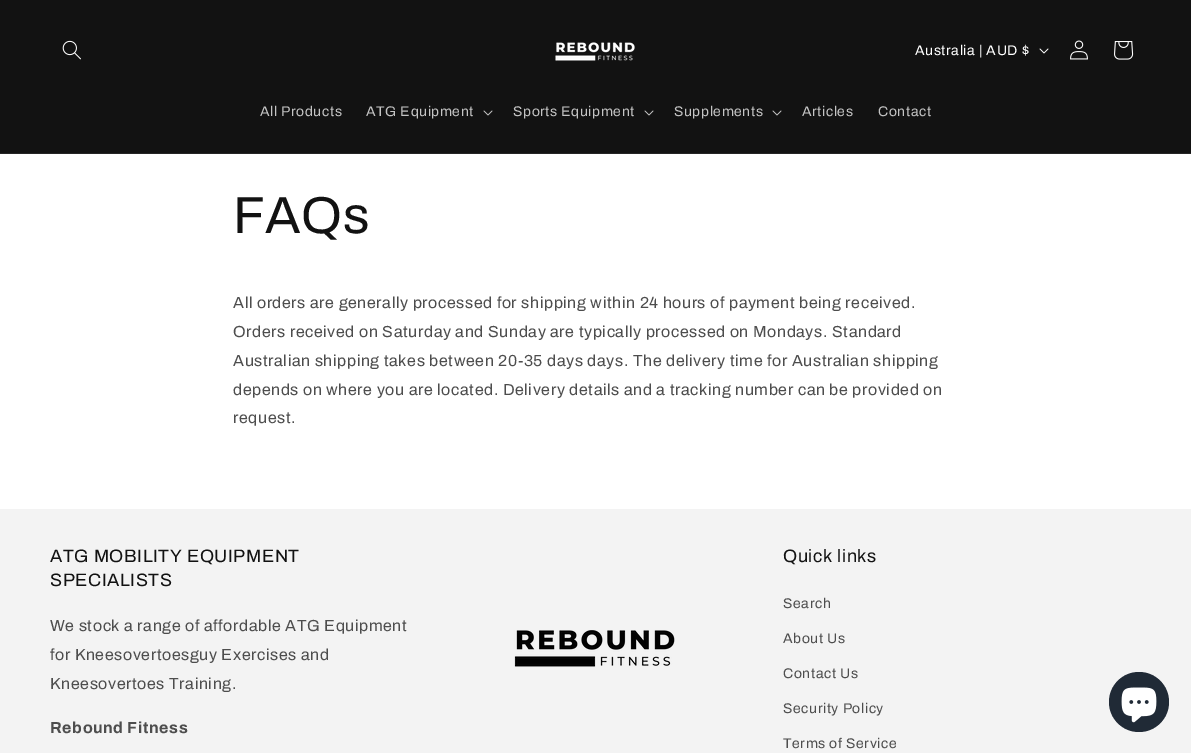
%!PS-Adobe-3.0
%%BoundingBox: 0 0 1191 753
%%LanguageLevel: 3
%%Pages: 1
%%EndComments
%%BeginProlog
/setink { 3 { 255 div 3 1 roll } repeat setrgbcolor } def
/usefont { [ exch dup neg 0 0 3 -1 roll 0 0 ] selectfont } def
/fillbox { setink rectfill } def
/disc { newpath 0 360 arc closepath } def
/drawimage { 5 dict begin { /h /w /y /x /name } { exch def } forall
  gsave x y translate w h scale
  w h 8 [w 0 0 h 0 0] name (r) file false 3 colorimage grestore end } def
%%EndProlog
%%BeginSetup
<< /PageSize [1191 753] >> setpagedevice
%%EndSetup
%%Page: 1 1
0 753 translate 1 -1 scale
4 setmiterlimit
0 0 1191 753 255 255 255 fillbox
0 0 1191 153 18 18 18 fillbox
0 153 1191 1 37 37 37 fillbox
(assets/img1.rgb) 62 40 19 20 drawimage
(assets/img2.rgb) 555 42 80 19 drawimage
/Archivo-SemiBold 14 usefont
255 255 255 setink
915 55 moveto 0.6 0 (Australia | AUD $) ashow
(assets/img3.rgb) 1039 48 10 6 drawimage
(assets/img4.rgb) 1070 40 18 20 drawimage
(assets/img5.rgb) 1114 41 20 19 drawimage
196 196 196 setink
260 116 moveto 0.6 0 (All Products) ashow
366 116 moveto 0.6 0 (ATG Equipment) ashow
(assets/img6.rgb) 483 110 10 6 drawimage
513 116 moveto 0.6 0 (Sports Equipment) ashow
(assets/img6.rgb) 644 110 10 6 drawimage
674 116 moveto 0.6 0 (Supplements) ashow
(assets/img6.rgb) 772 110 10 6 drawimage
802 116 moveto 0.6 0 (Articles) ashow
878 116 moveto 0.6 0 (Contact) ashow
/Archivo-SemiBold 52 usefont
18 18 18 setink
233 233 moveto 0.6 0 (FAQs) ashow
/Archivo-SemiBold 16 usefont
77 77 77 setink
233 308 moveto 0.6 0 (All orders are generally processed for shipping within 24 hours of payment being received.) ashow
233 337 moveto 0.6 0 (Orders received on Saturday and Sunday are typically processed on Mondays. Standard) ashow
233 366 moveto 0.6 0 (Australian shipping takes between 20-35 days days. The delivery time for Australian shipping) ashow
233 395 moveto 0.6 0 (depends on where you are located. Delivery details and a tracking number can be provided on) ashow
233 423 moveto 0.6 0 (request.) ashow
0 509 1191 244 243 243 243 fillbox
/Archivo-SemiBold 18 usefont
18 18 18 setink
50 562 moveto 0.6 0 (ATG MOBILITY EQUIPMENT) ashow
50 586 moveto 0.6 0 (SPECIALISTS) ashow
/Archivo-SemiBold 16 usefont
77 77 77 setink
50 631 moveto 0.6 0 (We stock a range of affordable ATG Equipment) ashow
50 660 moveto 0.6 0 (for Kneesovertoesguy Exercises and) ashow
50 689 moveto 0.6 0 (Kneesovertoes Training.) ashow
/Archivo-Bold 16 usefont
50 733 moveto 0.6 0 (Rebound Fitness) ashow
(assets/img7.rgb) 514 630 161 37 drawimage
/Archivo-SemiBold 18 usefont
18 18 18 setink
783 562 moveto 0.6 0 (Quick links) ashow
/Archivo-SemiBold 14 usefont
77 77 77 setink
783 608 moveto 0.6 0 (Search) ashow
783 643 moveto 0.6 0 (About Us) ashow
783 678 moveto 0.6 0 (Contact Us) ashow
783 713 moveto 0.6 0 (Security Policy) ashow
783 748 moveto 0.6 0 (Terms of Service) ashow
32 42 54 setink
1139 702 30 disc fill
(assets/img8.rgb) 1121 687 36 36 drawimage
showpage
%%EOF
